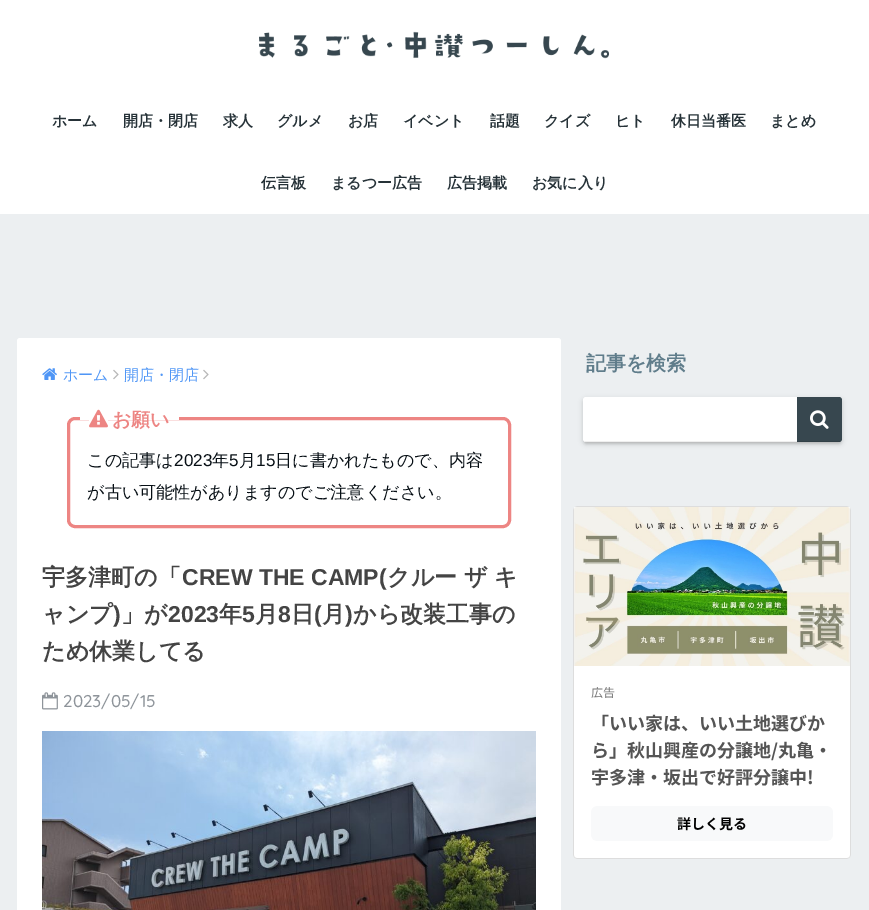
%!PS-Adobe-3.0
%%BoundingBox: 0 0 869 910
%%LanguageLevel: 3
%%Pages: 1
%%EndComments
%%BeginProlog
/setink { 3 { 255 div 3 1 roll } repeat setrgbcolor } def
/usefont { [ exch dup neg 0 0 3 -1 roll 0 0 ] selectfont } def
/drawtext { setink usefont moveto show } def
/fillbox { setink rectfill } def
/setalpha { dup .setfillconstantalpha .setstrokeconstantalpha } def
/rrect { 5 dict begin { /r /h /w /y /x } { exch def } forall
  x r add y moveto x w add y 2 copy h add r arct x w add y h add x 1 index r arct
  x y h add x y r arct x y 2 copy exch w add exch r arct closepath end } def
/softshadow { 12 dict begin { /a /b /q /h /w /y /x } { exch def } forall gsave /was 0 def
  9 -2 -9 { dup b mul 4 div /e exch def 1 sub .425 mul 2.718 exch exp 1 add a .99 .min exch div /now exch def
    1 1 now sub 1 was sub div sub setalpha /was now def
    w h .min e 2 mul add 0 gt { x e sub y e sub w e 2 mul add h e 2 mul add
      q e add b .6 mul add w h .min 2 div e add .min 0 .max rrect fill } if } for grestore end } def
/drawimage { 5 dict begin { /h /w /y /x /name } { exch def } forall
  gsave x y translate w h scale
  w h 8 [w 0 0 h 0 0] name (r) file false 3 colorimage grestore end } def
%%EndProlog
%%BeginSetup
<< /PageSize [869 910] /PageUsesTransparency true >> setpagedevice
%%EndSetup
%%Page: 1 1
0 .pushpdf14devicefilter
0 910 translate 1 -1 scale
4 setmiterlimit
0 0 869 910 236 239 241 fillbox
0 0 869 214 255 255 255 fillbox
(assets/img1.rgb) 259 31 350 28 drawimage
(ホーム) 52 126 /WenQuanYiZenHei-Bold 15 38 50 56 drawtext
(開店・閉店) 123 126 /WenQuanYiZenHei-Bold 15 38 50 56 drawtext
(求人) 223 126 /WenQuanYiZenHei-Bold 15 38 50 56 drawtext
(グルメ) 277 126 /WenQuanYiZenHei-Bold 15 38 50 56 drawtext
(お店) 348 126 /WenQuanYiZenHei-Bold 15 38 50 56 drawtext
(イベント) 403 126 /WenQuanYiZenHei-Bold 15 38 50 56 drawtext
(話題) 490 126 /WenQuanYiZenHei-Bold 15 38 50 56 drawtext
(クイズ) 544 126 /WenQuanYiZenHei-Bold 15 38 50 56 drawtext
(ヒト) 615 126 /WenQuanYiZenHei-Bold 15 38 50 56 drawtext
(休日当番医) 671 126 /WenQuanYiZenHei-Bold 15 38 50 56 drawtext
(まとめ) 770 126 /WenQuanYiZenHei-Bold 15 38 50 56 drawtext
(伝言板) 261 188 /WenQuanYiZenHei-Bold 15 38 50 56 drawtext
(まるつー広告) 331 188 /WenQuanYiZenHei-Bold 15 38 50 56 drawtext
(広告掲載) 447 188 /WenQuanYiZenHei-Bold 15 38 50 56 drawtext
(お気に入り) 532 188 /WenQuanYiZenHei-Bold 15 38 50 56 drawtext
(記事を検索) 586 370 /WenQuanYiZenHei-Bold 20 96 125 139 drawtext
0 0 0 setink
585 402 255 41 1 1.5 0.15 softshadow
583 399 259 45 3 2.5 0.15 softshadow
255 255 255 setink
583 397 259 45 3 rrect fill
585 441 256 1 239 239 239 fillbox
55 71 79 setink
797 397 moveto 839 397 lineto 840.5 397 842 398.5 842 400 curveto 842 439 lineto 842 440.5 840.5 442 839 442 curveto 797 442 lineto closepath fill
0.1 setalpha
797 441 44 1 0 0 0 fillbox
1 setalpha
(assets/img2.rgb) 810 410 19 19 drawimage
(assets/img3.rgb) 573 506 278 353 drawimage
255 255 255 setink
17 338 544 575 3 rrect fill
(assets/img4.rgb) 42 368 15 12 drawimage
(ホーム) 63 380 /WenQuanYiZenHei-Medium 15 79 150 246 drawtext
(assets/img5.rgb) 113 369 6 11 drawimage
(開店・閉店) 124 380 /WenQuanYiZenHei-Medium 15 79 150 246 drawtext
(assets/img5.rgb) 203 369 6 11 drawimage
237 133 131 setink
3 setlinewidth
68.5 418.5 441 108 6.5 rrect stroke
80 417 99 3 255 255 255 fillbox
(assets/img6.rgb) 89 409 19 19 drawimage
(お願い) 112 426 /WenQuanYiZenHei-Bold 19 237 133 131 drawtext
(この記事は) 87 466 /WenQuanYiZenHei-Medium 17.1 7 15 21 drawtext
(2023) 174 466 /LiberationSans-Regular 17.1 7 15 21 drawtext
(年) 212 466 /WenQuanYiZenHei-Medium 17.1 7 15 21 drawtext
(5) 229 466 /LiberationSans-Regular 17.1 7 15 21 drawtext
(月) 239 466 /WenQuanYiZenHei-Medium 17.1 7 15 21 drawtext
(15) 256 466 /LiberationSans-Regular 17.1 7 15 21 drawtext
(日に書かれたもので、内容) 275 466 /WenQuanYiZenHei-Medium 17.1 7 15 21 drawtext
(が古い可能性がありますのでご注意ください。) 87 498 /WenQuanYiZenHei-Medium 17.1 7 15 21 drawtext
(宇多津町の「) 42 585 /WenQuanYiZenHei-Bold 23 68 68 68 drawtext
(CREW THE CAMP\() 182 585 /LiberationSans-Bold 23 68 68 68 drawtext
(クルー) 387 585 /WenQuanYiZenHei-Bold 23 68 68 68 drawtext
(ザ) 464 585 /WenQuanYiZenHei-Bold 23 68 68 68 drawtext
(キ) 494 585 /WenQuanYiZenHei-Bold 23 68 68 68 drawtext
(ャンプ) 42 622 /WenQuanYiZenHei-Bold 23 68 68 68 drawtext
(\)) 113 622 /LiberationSans-Bold 23 68 68 68 drawtext
(」が) 121 622 /WenQuanYiZenHei-Bold 23 68 68 68 drawtext
(2023) 168 622 /LiberationSans-Bold 23 68 68 68 drawtext
(年) 219 622 /WenQuanYiZenHei-Bold 23 68 68 68 drawtext
(5) 242 622 /LiberationSans-Bold 23 68 68 68 drawtext
(月) 255 622 /WenQuanYiZenHei-Bold 23 68 68 68 drawtext
(8) 278 622 /LiberationSans-Bold 23 68 68 68 drawtext
(日) 291 622 /WenQuanYiZenHei-Bold 23 68 68 68 drawtext
(\() 314 622 /LiberationSans-Bold 23 68 68 68 drawtext
(月) 322 622 /WenQuanYiZenHei-Bold 23 68 68 68 drawtext
(\)) 345 622 /LiberationSans-Bold 23 68 68 68 drawtext
(から改装工事の) 353 622 /WenQuanYiZenHei-Bold 23 68 68 68 drawtext
(ため休業してる) 42 659 /WenQuanYiZenHei-Bold 23 68 68 68 drawtext
(assets/img7.rgb) 42 692 16 18 drawimage
(2023/05/15) 63 707 /Quicksand-Medium 17.1 142 148 154 drawtext
(assets/img8.rgb) 42 731 494 179 drawimage
.poppdf14devicefilter showpage
%%EOF
